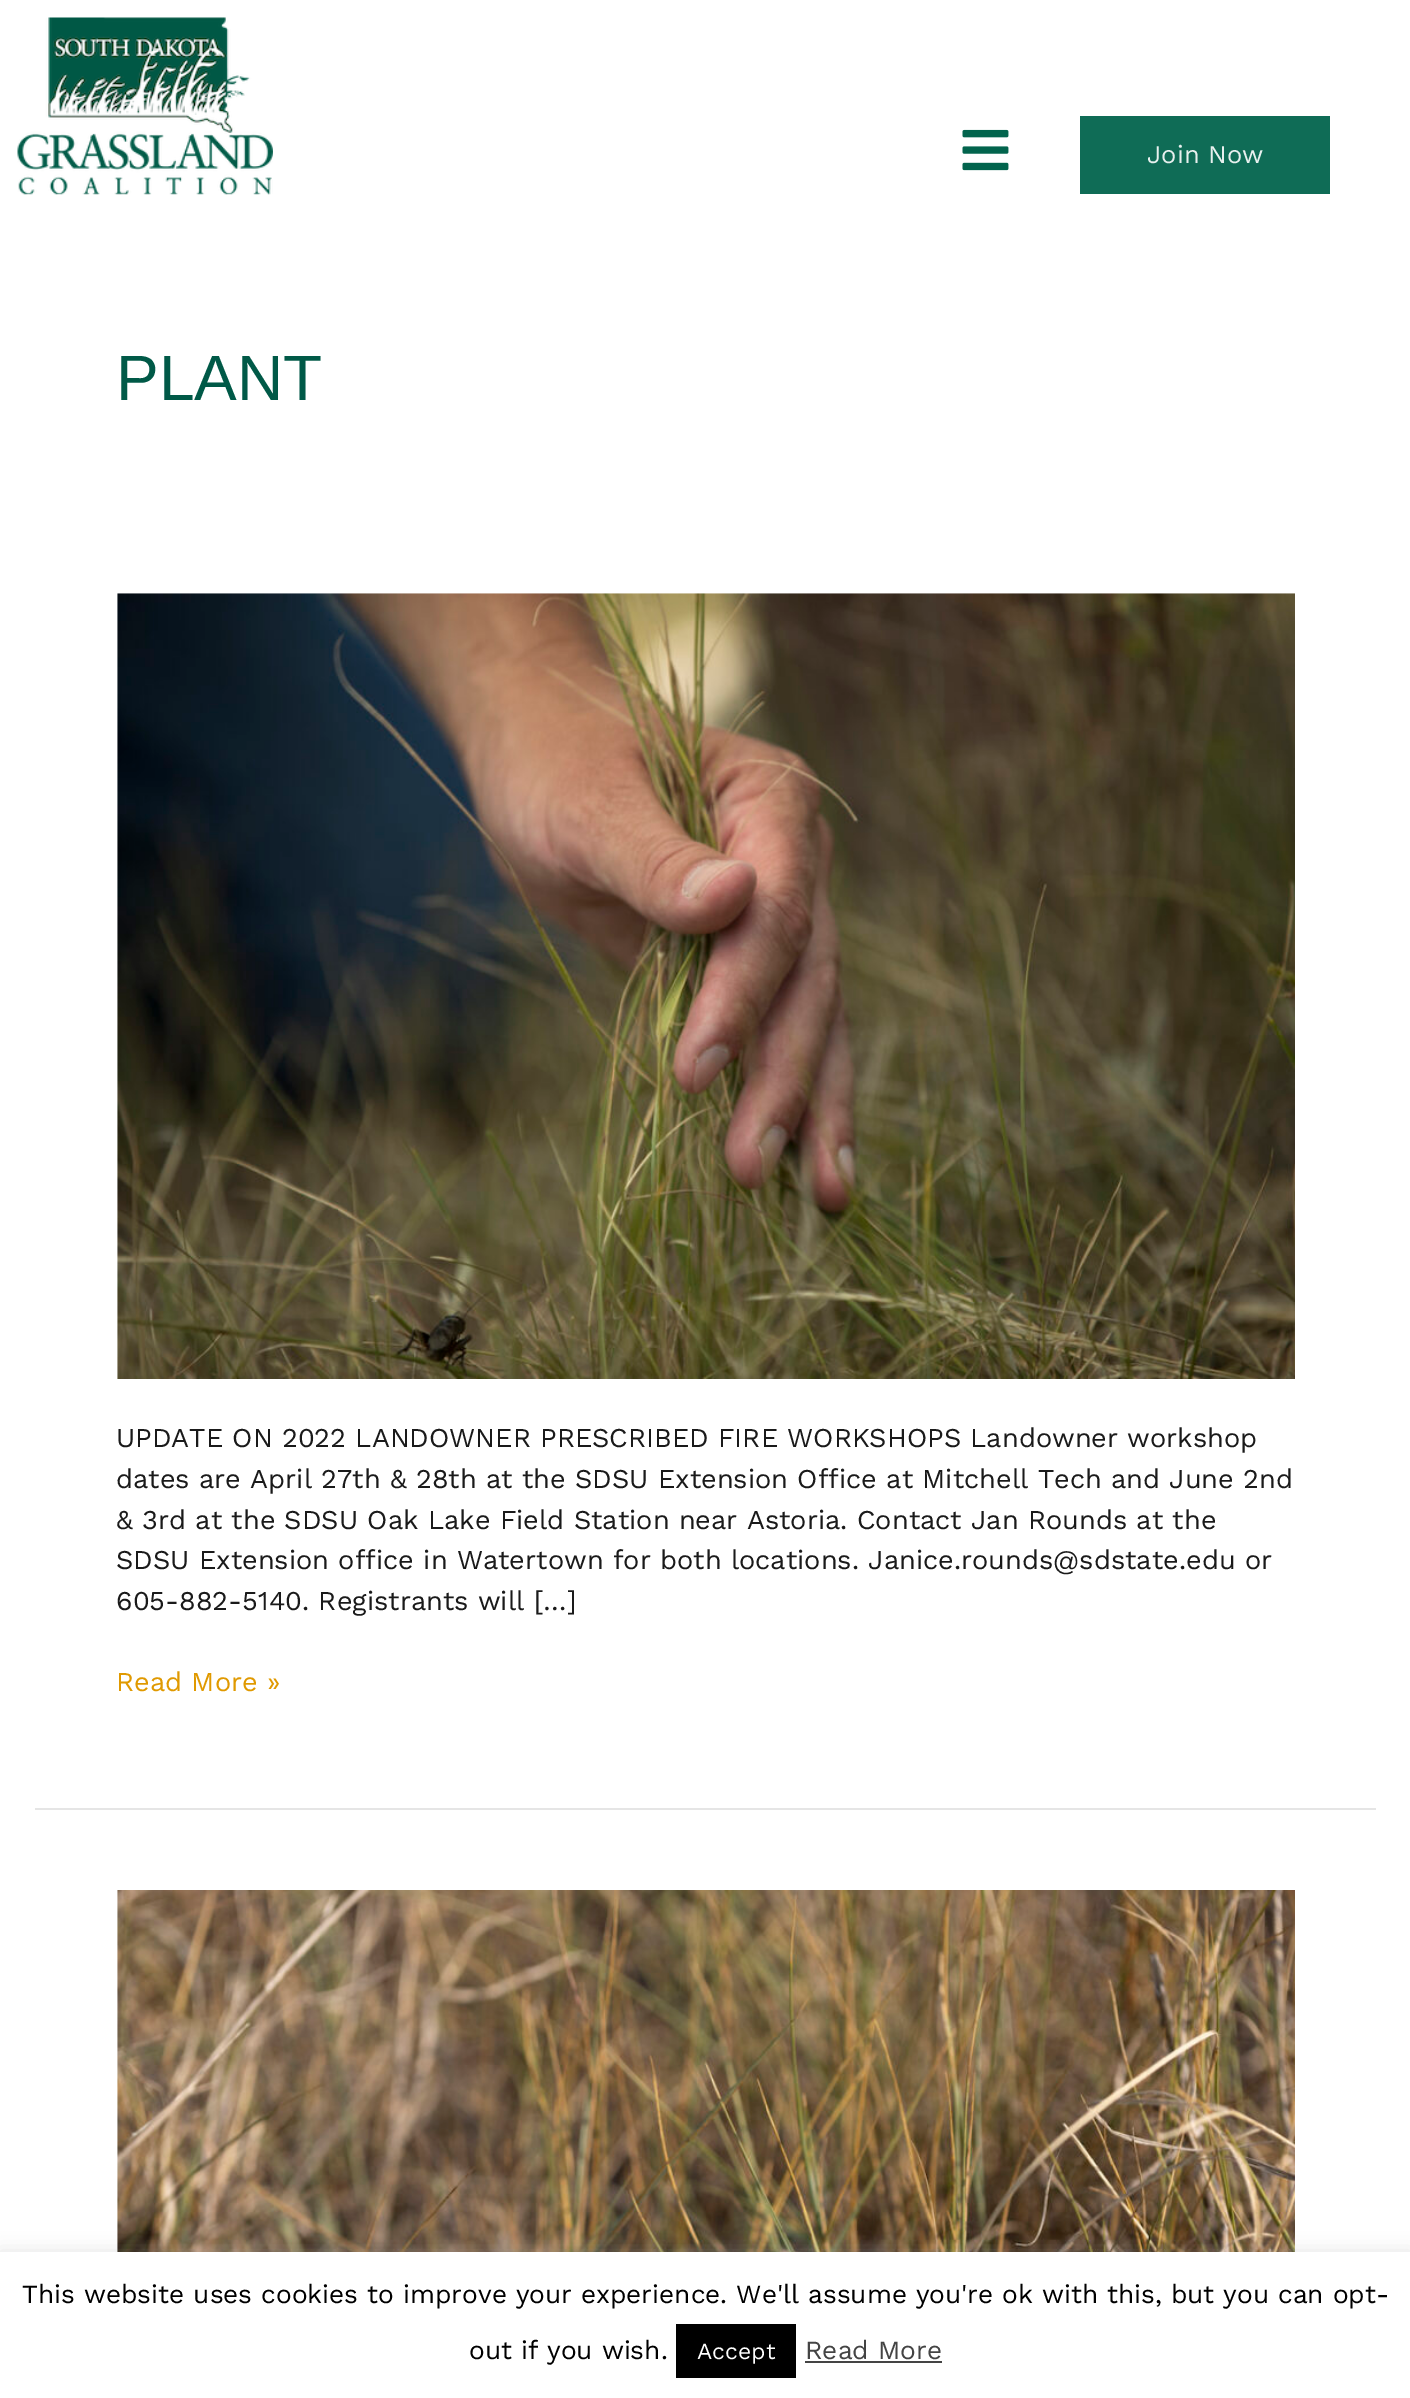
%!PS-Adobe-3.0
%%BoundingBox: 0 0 1410 2398
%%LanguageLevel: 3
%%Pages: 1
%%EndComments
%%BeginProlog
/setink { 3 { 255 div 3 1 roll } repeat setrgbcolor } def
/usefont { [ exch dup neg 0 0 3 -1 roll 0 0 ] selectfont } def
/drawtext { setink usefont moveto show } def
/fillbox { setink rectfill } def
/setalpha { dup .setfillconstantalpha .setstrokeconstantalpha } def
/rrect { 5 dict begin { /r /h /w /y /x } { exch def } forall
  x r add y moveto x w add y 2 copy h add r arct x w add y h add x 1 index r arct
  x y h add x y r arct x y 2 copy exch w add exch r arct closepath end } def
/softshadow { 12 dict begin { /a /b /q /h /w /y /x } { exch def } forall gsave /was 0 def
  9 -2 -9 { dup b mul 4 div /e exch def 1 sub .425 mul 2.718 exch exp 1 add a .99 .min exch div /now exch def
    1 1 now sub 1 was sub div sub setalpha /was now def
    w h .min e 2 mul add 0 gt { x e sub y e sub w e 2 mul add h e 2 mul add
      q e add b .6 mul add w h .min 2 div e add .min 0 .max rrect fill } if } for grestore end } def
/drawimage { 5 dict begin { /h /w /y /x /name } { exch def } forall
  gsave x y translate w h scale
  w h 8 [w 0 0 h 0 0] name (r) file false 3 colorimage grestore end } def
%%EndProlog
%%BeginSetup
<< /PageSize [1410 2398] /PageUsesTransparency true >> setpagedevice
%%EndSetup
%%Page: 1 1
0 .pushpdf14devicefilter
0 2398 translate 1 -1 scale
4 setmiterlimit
0 0 1410 2398 255 255 255 fillbox
(assets/img1.rgb) 17 17 256 178 drawimage
(assets/img2.rgb) 962 129 47 42 drawimage
1080 116 250 78 15 108 86 fillbox
(Join Now) 1147 163 /WorkSans-Regular 25.5 231 240 238 drawtext
(PLANT) 116 400 /LiberationSans-Regular 64 0 89 71 drawtext
35 1808 1341 2 229 229 229 fillbox
(assets/img3.rgb) 117 593 1178 786 drawimage
(UPDATE ON 2022 LANDOWNER PRESCRIBED FIRE WORKSHOPS Landowner workshop) 116 1447 /WorkSans-Regular 27.15 26 26 26 drawtext
(dates are April 27th & 28th at the SDSU Extension Office at Mitchell Tech and June 2nd) 116 1488 /WorkSans-Regular 27.15 26 26 26 drawtext
(& 3rd at the SDSU Oak Lake Field Station near Astoria. Contact Jan Rounds at the) 116 1529 /WorkSans-Regular 27.15 26 26 26 drawtext
(SDSU Extension office in Watertown for both locations. Janice.rounds@sdstate.edu or) 116 1569 /WorkSans-Regular 27.15 26 26 26 drawtext
(605-882-5140. Registrants will […]) 116 1610 /WorkSans-Regular 27.15 26 26 26 drawtext
(Read More ») 116 1691 /WorkSans-Regular 27.15 224 153 0 drawtext
(assets/img4.rgb) 117 1890 1178 362 drawimage
172 171 171 setink
0 2251 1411 147 0 9 0.3 softshadow
0 2252 1410 146 255 255 255 fillbox
(This website uses cookies to improve your experience. We'll assume you're ok with this, but you can opt-) 22 2303 /WorkSans-Regular 26.25 0 0 0 drawtext
(out if you wish.) 469 2359 /WorkSans-Regular 26.25 0 0 0 drawtext
676 2324 120 54 0 0 0 fillbox
(Accept) 697 2359 /WorkSans-Regular 23 255 255 255 drawtext
(Read More) 805 2359 /WorkSans-Regular 26.25 68 68 68 drawtext
805 2361 137 2 68 68 68 fillbox
.poppdf14devicefilter showpage
%%EOF
